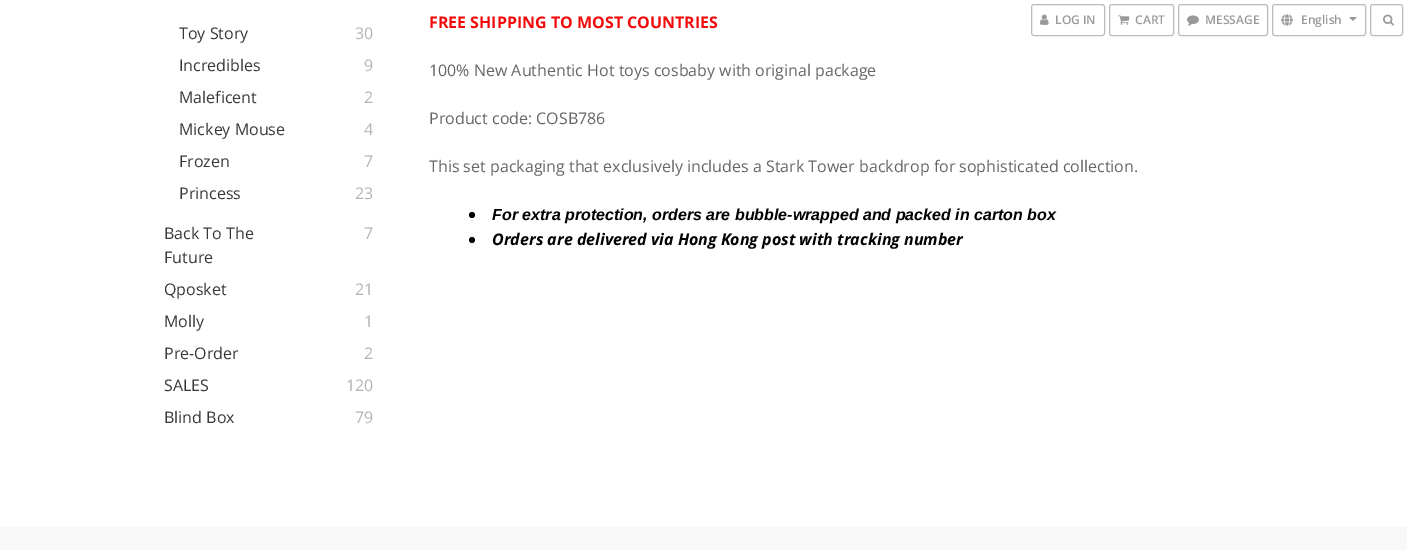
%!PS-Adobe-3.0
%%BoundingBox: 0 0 1407 550
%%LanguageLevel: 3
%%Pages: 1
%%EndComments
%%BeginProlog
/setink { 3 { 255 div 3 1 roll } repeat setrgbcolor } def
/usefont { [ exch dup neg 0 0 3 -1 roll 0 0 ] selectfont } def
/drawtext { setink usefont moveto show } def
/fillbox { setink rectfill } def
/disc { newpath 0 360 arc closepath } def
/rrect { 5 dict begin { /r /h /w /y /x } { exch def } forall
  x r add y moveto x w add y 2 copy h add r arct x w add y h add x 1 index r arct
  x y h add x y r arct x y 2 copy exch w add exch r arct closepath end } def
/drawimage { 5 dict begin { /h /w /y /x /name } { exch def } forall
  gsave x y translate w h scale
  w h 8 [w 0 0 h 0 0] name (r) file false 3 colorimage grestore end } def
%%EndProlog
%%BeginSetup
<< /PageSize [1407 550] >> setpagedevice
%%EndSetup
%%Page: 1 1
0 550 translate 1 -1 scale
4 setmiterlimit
0 0 1407 550 255 255 255 fillbox
(Toy Story) 179 39 /OpenSans-Regular 16 56 56 56 drawtext
(30) 355 39 /OpenSans-Regular 16 179 179 179 drawtext
(Incredibles) 179 71 /OpenSans-Regular 16 56 56 56 drawtext
(9) 364 71 /OpenSans-Regular 16 179 179 179 drawtext
(Maleficent) 179 103 /OpenSans-Regular 16 56 56 56 drawtext
(2) 364 103 /OpenSans-Regular 16 179 179 179 drawtext
(Mickey Mouse) 179 135 /OpenSans-Regular 16 56 56 56 drawtext
(4) 364 135 /OpenSans-Regular 16 179 179 179 drawtext
(Frozen) 179 167 /OpenSans-Regular 16 56 56 56 drawtext
(7) 364 167 /OpenSans-Regular 16 179 179 179 drawtext
(Princess) 179 199 /OpenSans-Regular 16 56 56 56 drawtext
(23) 355 199 /OpenSans-Regular 16 179 179 179 drawtext
(Back To The) 164 239 /OpenSans-Regular 16 56 56 56 drawtext
(Future) 164 263 /OpenSans-Regular 16 56 56 56 drawtext
(7) 364 239 /OpenSans-Regular 16 179 179 179 drawtext
(Qposket) 164 295 /OpenSans-Regular 16 56 56 56 drawtext
(21) 355 295 /OpenSans-Regular 16 179 179 179 drawtext
(Molly) 164 327 /OpenSans-Regular 16 56 56 56 drawtext
(1) 364 327 /OpenSans-Regular 16 179 179 179 drawtext
(Pre-Order) 164 359 /OpenSans-Regular 16 56 56 56 drawtext
(2) 364 359 /OpenSans-Regular 16 179 179 179 drawtext
(SALES) 164 391 /OpenSans-Regular 16 56 56 56 drawtext
(120) 346 391 /OpenSans-Regular 16 179 179 179 drawtext
(Blind Box) 164 423 /OpenSans-Regular 16 56 56 56 drawtext
(79) 355 423 /OpenSans-Regular 16 179 179 179 drawtext
(FREE SHIPPING TO MOST COUNTRIES) 429 28 /OpenSans-Bold 16 242 10 10 drawtext
(100% New Authentic Hot toys cosbaby with original package) 429 76 /OpenSans-Regular 16 102 102 102 drawtext
(Product code: COSB786) 429 124 /OpenSans-Regular 16 102 102 102 drawtext
(This set packaging that exclusively includes a Stark Tower backdrop for sophisticated collection.) 429 172 /OpenSans-Regular 16 102 102 102 drawtext
0 0 0 setink
472 215 3 disc fill
(For extra protection, orders are bubble-wrapped and packed in carton box) 492 220 /LiberationSans-BoldItalic 16 0 0 0 drawtext
472 240 3 disc fill
(Orders are delivered via Hong Kong post with tracking number) 492 245 /OpenSans-BoldItalic 16 0 0 0 drawtext
0 527 1407 23 248 248 248 fillbox
187 187 187 setink
1031.5 4.5 73 31 2.5 rrect stroke
(assets/img1.rgb) 1040 14 9 11 drawimage
(LOG IN) 1055 24 /OpenSans-SemiBold 12 153 153 153 drawtext
187 187 187 setink
1109.5 4.5 64 31 2.5 rrect stroke
(assets/img2.rgb) 1118 15 12 10 drawimage
(CART) 1135 24 /OpenSans-SemiBold 12 153 153 153 drawtext
187 187 187 setink
1178.5 4.5 89 31 2.5 rrect stroke
(assets/img3.rgb) 1187 15 12 11 drawimage
(MESSAGE) 1205 24 /OpenSans-SemiBold 12 153 153 153 drawtext
187 187 187 setink
1272.5 4.5 93 31 2.5 rrect stroke
(assets/img4.rgb) 1281 14 12 12 drawimage
(English) 1301 24 /OpenSans-SemiBold 12 153 153 153 drawtext
1349 17 moveto 1357 17 lineto 1353 21 lineto closepath fill
187 187 187 setink
1370.5 4.5 32 31 2.5 rrect stroke
(assets/img5.rgb) 1383 14 11 12 drawimage
showpage
%%EOF
